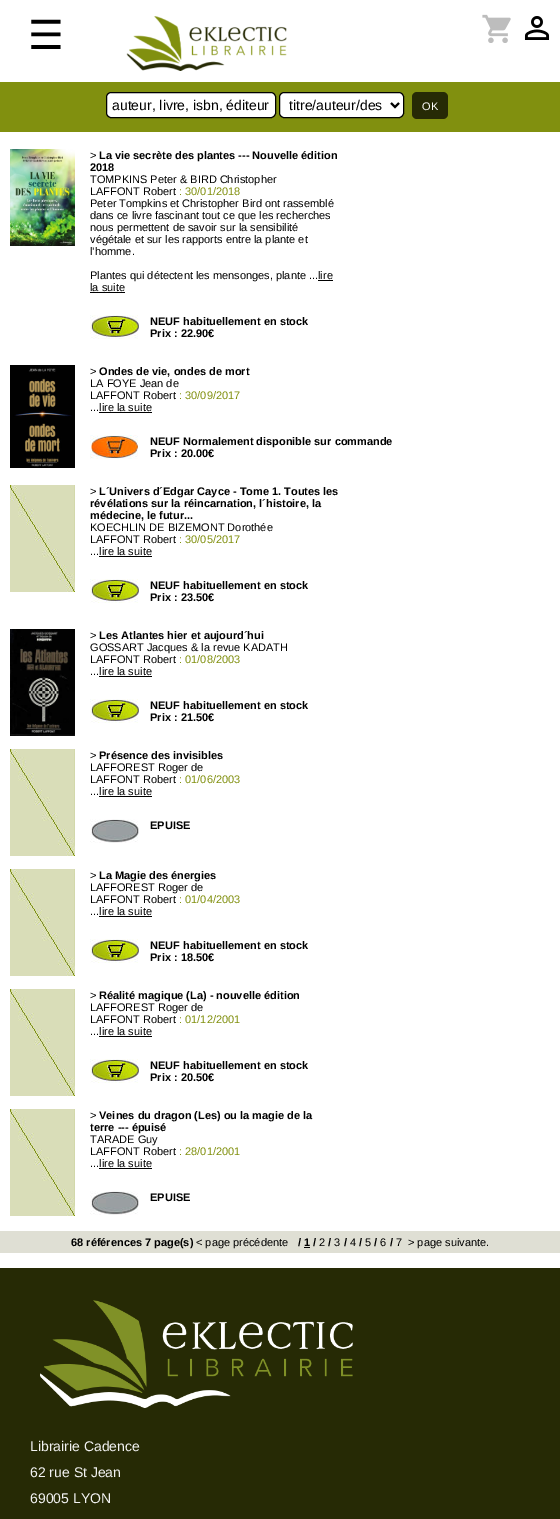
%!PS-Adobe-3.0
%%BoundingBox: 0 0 560 1519
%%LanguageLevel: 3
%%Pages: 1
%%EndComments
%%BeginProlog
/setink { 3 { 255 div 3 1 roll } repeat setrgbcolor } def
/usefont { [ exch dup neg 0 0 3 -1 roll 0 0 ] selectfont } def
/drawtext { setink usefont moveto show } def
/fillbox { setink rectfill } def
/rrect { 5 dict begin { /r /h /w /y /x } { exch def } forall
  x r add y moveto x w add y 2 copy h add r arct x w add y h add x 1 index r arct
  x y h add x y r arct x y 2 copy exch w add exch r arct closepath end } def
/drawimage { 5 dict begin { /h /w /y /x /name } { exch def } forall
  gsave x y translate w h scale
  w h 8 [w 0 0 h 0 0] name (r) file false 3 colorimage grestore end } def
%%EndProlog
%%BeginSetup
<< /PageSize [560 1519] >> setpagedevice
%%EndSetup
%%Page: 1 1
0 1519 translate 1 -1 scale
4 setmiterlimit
0 0 560 1519 255 255 255 fillbox
(☰) 28 49 /DejaVuSans-Regular 40 0 0 0 drawtext
(assets/img1.rgb) 126 16 161 55 drawimage
(assets/img2.rgb) 482 14 29 29 drawimage
(assets/img3.rgb) 524 16 26 24 drawimage
0 82 560 50 129 144 15 fillbox
255 255 255 setink
106.5 92.5 169 25 4.5 rrect gsave fill grestore
0 0 0 setink
stroke
(auteur, livre, isbn, éditeur) 112 110 /LiberationSans-Regular 14 0 0 0 drawtext
255 255 255 setink
279.5 92.5 124 25 4.5 rrect gsave fill grestore
0 0 0 setink
stroke
2 setlinewidth
391 103 moveto 395 107 lineto 399 103 lineto stroke
(titre/auteur/des) 289 110 /LiberationSans-Regular 14 0 0 0 drawtext
38 42 5 setink
412 92 36 27 5 rrect fill
(OK) 422 110 /LiberationSans-Regular 11 255 255 255 drawtext
(assets/img4.rgb) 10 149 65 97 drawimage
(>) 90 159 /LiberationSans-Regular 11 0 0 0 drawtext
(La vie secrète des plantes --- Nouvelle édition) 99 159 /LiberationSans-Bold 11 0 0 0 drawtext
(2018) 90 171 /LiberationSans-Bold 11 0 0 0 drawtext
(TOMPKINS Peter & BIRD Christopher) 90 183 /LiberationSans-Regular 11 0 0 0 drawtext
(LAFFONT Robert) 90 195 /LiberationSans-Regular 11 0 0 0 drawtext
(: 30/01/2018) 179 195 /LiberationSans-Regular 11 129 144 14 drawtext
(Peter Tompkins et Christopher Bird ont rassemblé) 90 207 /LiberationSans-Regular 11 0 0 0 drawtext
(dans ce livre fascinant tout ce que les recherches) 90 219 /LiberationSans-Regular 11 0 0 0 drawtext
(nous permettent de savoir sur la sensibilité) 90 231 /LiberationSans-Regular 11 0 0 0 drawtext
(végétale et sur les rapports entre la plante et) 90 243 /LiberationSans-Regular 11 0 0 0 drawtext
(l’homme.) 90 255 /LiberationSans-Regular 11 0 0 0 drawtext
(Plantes qui détectent les mensonges, plante ...lire) 90 279 /LiberationSans-Regular 11 0 0 0 drawtext
(la suite) 90 291 /LiberationSans-Regular 11 0 0 0 drawtext
318 280 15 1 0 0 0 fillbox
90 292 35 1 0 0 0 fillbox
(assets/img5.rgb) 90 315 49 24 drawimage
(NEUF habituellement en stock) 150 325 /LiberationSans-Bold 11 0 0 0 drawtext
(Prix : 22.90€) 150 337 /LiberationSans-Bold 11 0 0 0 drawtext
(assets/img6.rgb) 10 365 65 103 drawimage
(>) 90 375 /LiberationSans-Regular 11 0 0 0 drawtext
(Ondes de vie, ondes de mort) 99 375 /LiberationSans-Bold 11 0 0 0 drawtext
(LA FOYE Jean de) 90 387 /LiberationSans-Regular 11 0 0 0 drawtext
(LAFFONT Robert) 90 399 /LiberationSans-Regular 11 0 0 0 drawtext
(: 30/09/2017) 179 399 /LiberationSans-Regular 11 129 144 14 drawtext
(...lire la suite) 90 411 /LiberationSans-Regular 11 0 0 0 drawtext
99 412 53 1 0 0 0 fillbox
(assets/img7.rgb) 90 435 48 24 drawimage
(NEUF Normalement disponible sur commande) 150 445 /LiberationSans-Bold 11 0 0 0 drawtext
(Prix : 20.00€) 150 457 /LiberationSans-Bold 11 0 0 0 drawtext
(assets/img8.rgb) 10 485 65 107 drawimage
(>) 90 495 /LiberationSans-Regular 11 0 0 0 drawtext
(L´Univers d´Edgar Cayce - Tome 1. Toutes les) 99 495 /LiberationSans-Bold 11 0 0 0 drawtext
(révélations sur la réincarnation, l´histoire, la) 90 507 /LiberationSans-Bold 11 0 0 0 drawtext
(médecine, le futur...) 90 519 /LiberationSans-Bold 11 0 0 0 drawtext
(KOECHLIN DE BIZEMONT Dorothée) 90 531 /LiberationSans-Regular 11 0 0 0 drawtext
(LAFFONT Robert) 90 543 /LiberationSans-Regular 11 0 0 0 drawtext
(: 30/05/2017) 179 543 /LiberationSans-Regular 11 129 144 14 drawtext
(...lire la suite) 90 555 /LiberationSans-Regular 11 0 0 0 drawtext
99 556 53 1 0 0 0 fillbox
(assets/img5.rgb) 90 579 49 24 drawimage
(NEUF habituellement en stock) 150 589 /LiberationSans-Bold 11 0 0 0 drawtext
(Prix : 23.50€) 150 601 /LiberationSans-Bold 11 0 0 0 drawtext
(assets/img9.rgb) 10 629 65 107 drawimage
(>) 90 639 /LiberationSans-Regular 11 0 0 0 drawtext
(Les Atlantes hier et aujourd´hui) 99 639 /LiberationSans-Bold 11 0 0 0 drawtext
(GOSSART Jacques & la revue KADATH) 90 651 /LiberationSans-Regular 11 0 0 0 drawtext
(LAFFONT Robert) 90 663 /LiberationSans-Regular 11 0 0 0 drawtext
(: 01/08/2003) 179 663 /LiberationSans-Regular 11 129 144 14 drawtext
(...lire la suite) 90 675 /LiberationSans-Regular 11 0 0 0 drawtext
99 676 53 1 0 0 0 fillbox
(assets/img5.rgb) 90 699 49 24 drawimage
(NEUF habituellement en stock) 150 709 /LiberationSans-Bold 11 0 0 0 drawtext
(Prix : 21.50€) 150 721 /LiberationSans-Bold 11 0 0 0 drawtext
(assets/img8.rgb) 10 749 65 107 drawimage
(>) 90 759 /LiberationSans-Regular 11 0 0 0 drawtext
(Présence des invisibles) 99 759 /LiberationSans-Bold 11 0 0 0 drawtext
(LAFFOREST Roger de) 90 771 /LiberationSans-Regular 11 0 0 0 drawtext
(LAFFONT Robert) 90 783 /LiberationSans-Regular 11 0 0 0 drawtext
(: 01/06/2003) 179 783 /LiberationSans-Regular 11 129 144 14 drawtext
(...lire la suite) 90 795 /LiberationSans-Regular 11 0 0 0 drawtext
99 796 53 1 0 0 0 fillbox
(assets/img10.rgb) 90 819 49 24 drawimage
(EPUISE) 150 829 /LiberationSans-Bold 11 0 0 0 drawtext
(assets/img8.rgb) 10 869 65 107 drawimage
(>) 90 879 /LiberationSans-Regular 11 0 0 0 drawtext
(La Magie des énergies) 99 879 /LiberationSans-Bold 11 0 0 0 drawtext
(LAFFOREST Roger de) 90 891 /LiberationSans-Regular 11 0 0 0 drawtext
(LAFFONT Robert) 90 903 /LiberationSans-Regular 11 0 0 0 drawtext
(: 01/04/2003) 179 903 /LiberationSans-Regular 11 129 144 14 drawtext
(...lire la suite) 90 915 /LiberationSans-Regular 11 0 0 0 drawtext
99 916 53 1 0 0 0 fillbox
(assets/img5.rgb) 90 939 49 24 drawimage
(NEUF habituellement en stock) 150 949 /LiberationSans-Bold 11 0 0 0 drawtext
(Prix : 18.50€) 150 961 /LiberationSans-Bold 11 0 0 0 drawtext
(assets/img8.rgb) 10 989 65 107 drawimage
(>) 90 999 /LiberationSans-Regular 11 0 0 0 drawtext
(Réalité magique \(La\) - nouvelle édition) 99 999 /LiberationSans-Bold 11 0 0 0 drawtext
(LAFFOREST Roger de) 90 1011 /LiberationSans-Regular 11 0 0 0 drawtext
(LAFFONT Robert) 90 1023 /LiberationSans-Regular 11 0 0 0 drawtext
(: 01/12/2001) 179 1023 /LiberationSans-Regular 11 129 144 14 drawtext
(...lire la suite) 90 1035 /LiberationSans-Regular 11 0 0 0 drawtext
99 1036 53 1 0 0 0 fillbox
(assets/img5.rgb) 90 1059 49 24 drawimage
(NEUF habituellement en stock) 150 1069 /LiberationSans-Bold 11 0 0 0 drawtext
(Prix : 20.50€) 150 1081 /LiberationSans-Bold 11 0 0 0 drawtext
(assets/img8.rgb) 10 1109 65 107 drawimage
(>) 90 1119 /LiberationSans-Regular 11 0 0 0 drawtext
(Veines du dragon \(Les\) ou la magie de la) 99 1119 /LiberationSans-Bold 11 0 0 0 drawtext
(terre --- épuisé) 90 1131 /LiberationSans-Bold 11 0 0 0 drawtext
(TARADE Guy) 90 1143 /LiberationSans-Regular 11 0 0 0 drawtext
(LAFFONT Robert) 90 1155 /LiberationSans-Regular 11 0 0 0 drawtext
(: 28/01/2001) 179 1155 /LiberationSans-Regular 11 129 144 14 drawtext
(...lire la suite) 90 1167 /LiberationSans-Regular 11 0 0 0 drawtext
99 1168 53 1 0 0 0 fillbox
(assets/img10.rgb) 90 1191 49 24 drawimage
(EPUISE) 150 1201 /LiberationSans-Bold 11 0 0 0 drawtext
0 1231 560 22 223 223 212 fillbox
(68 références 7 page\(s\)) 71 1246 /LiberationSans-Bold 11 0 0 0 drawtext
(< page précédente) 196 1246 /LiberationSans-Regular 11 0 0 0 drawtext
(/ 1 /) 298 1246 /LiberationSans-Bold 11 0 0 0 drawtext
(2) 319 1246 /LiberationSans-Regular 11 0 0 0 drawtext
(/) 328 1246 /LiberationSans-Bold 11 0 0 0 drawtext
(3) 334 1246 /LiberationSans-Regular 11 0 0 0 drawtext
(/) 344 1246 /LiberationSans-Bold 11 0 0 0 drawtext
(4) 350 1246 /LiberationSans-Regular 11 0 0 0 drawtext
(/) 359 1246 /LiberationSans-Bold 11 0 0 0 drawtext
(5) 365 1246 /LiberationSans-Regular 11 0 0 0 drawtext
(/) 374 1246 /LiberationSans-Bold 11 0 0 0 drawtext
(6) 380 1246 /LiberationSans-Regular 11 0 0 0 drawtext
(/) 390 1246 /LiberationSans-Bold 11 0 0 0 drawtext
(7) 396 1246 /LiberationSans-Regular 11 0 0 0 drawtext
(> page suivante.) 408 1246 /LiberationSans-Regular 11 0 0 0 drawtext
304 1247 6 1 0 0 0 fillbox
0 1268 560 251 38 42 5 fillbox
(assets/img11.rgb) 40 1300 313 108 drawimage
(Librairie Cadence) 30 1451 /LiberationSans-Regular 14 242 242 242 drawtext
(62 rue St Jean) 30 1477 /LiberationSans-Regular 14 242 242 242 drawtext
(69005 LYON) 30 1503 /LiberationSans-Regular 14 242 242 242 drawtext
showpage
%%EOF
